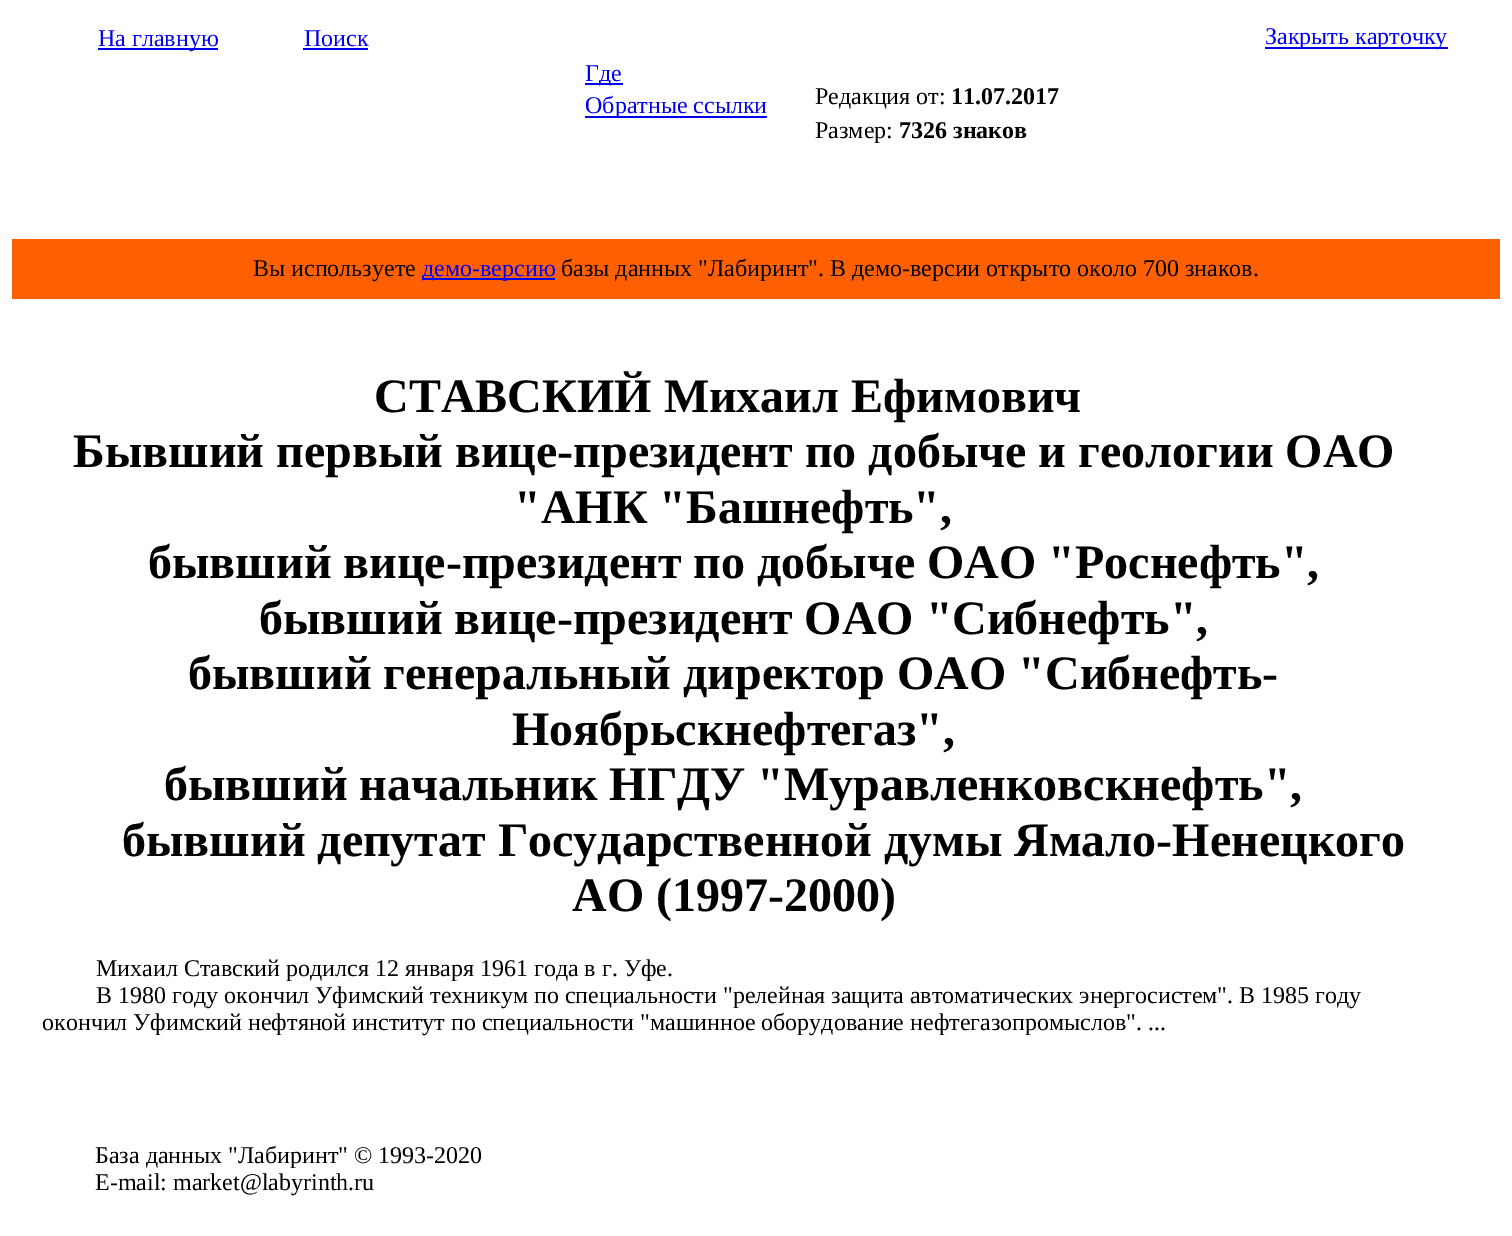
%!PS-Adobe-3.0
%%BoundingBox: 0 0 1512 1236
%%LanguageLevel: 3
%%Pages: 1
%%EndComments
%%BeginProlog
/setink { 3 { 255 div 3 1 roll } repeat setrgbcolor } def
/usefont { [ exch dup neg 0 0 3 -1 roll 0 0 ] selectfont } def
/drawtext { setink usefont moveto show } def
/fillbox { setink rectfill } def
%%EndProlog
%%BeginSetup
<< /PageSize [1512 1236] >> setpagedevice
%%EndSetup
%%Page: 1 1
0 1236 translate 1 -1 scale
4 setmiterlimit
0 0 1512 1236 255 255 255 fillbox
98 48 120 2 0 0 238 fillbox
(На главную) 98 46 /LiberationSerif-Regular 24 0 0 238 drawtext
(Поиск) 304 46 /LiberationSerif-Regular 24 0 0 238 drawtext
303 48 65 2 0 0 238 fillbox
1265 47 183 2 0 0 238 fillbox
(Закрыть карточку) 1265 44 /LiberationSerif-Regular 24 0 0 238 drawtext
(Редакция от:) 815 104 /LiberationSerif-Regular 24 0 0 0 drawtext
(11.07.2017) 951 104 /LiberationSerif-Bold 24 0 0 0 drawtext
(Размер:) 815 138 /LiberationSerif-Regular 24 0 0 0 drawtext
(7326 знаков) 899 138 /LiberationSerif-Bold 24 0 0 0 drawtext
585 83 38 2 0 0 238 fillbox
(Где) 585 81 /LiberationSerif-Regular 24 0 0 238 drawtext
585 116 182 2 0 0 238 fillbox
(Обратные ссылки) 585 113 /LiberationSerif-Regular 24 0 0 238 drawtext
12 239 1488 60 255 95 3 fillbox
(Вы используете) 253 276 /LiberationSerif-Regular 24 0 0 0 drawtext
422 278 133 2 0 0 238 fillbox
(демо-версию) 422 276 /LiberationSerif-Regular 24 0 0 238 drawtext
(базы данных "Лабиринт". В демо-версии открыто около 700 знаков.) 561 276 /LiberationSerif-Regular 24 0 0 0 drawtext
(СТАВСКИЙ Михаил Ефимович) 374 412 /LiberationSerif-Bold 48 0 0 0 drawtext
(Бывший первый вице-президент по добыче и геологии ОАО) 73 467 /LiberationSerif-Bold 48 0 0 0 drawtext
("АНК "Башнефть",) 514 523 /LiberationSerif-Bold 48 0 0 0 drawtext
(бывший вице-президент по добыче ОАО "Роснефть",) 148 578 /LiberationSerif-Bold 48 0 0 0 drawtext
(бывший вице-президент ОАО "Сибнефть",) 259 634 /LiberationSerif-Bold 48 0 0 0 drawtext
(бывший генеральный директор ОАО "Сибнефть-) 188 689 /LiberationSerif-Bold 48 0 0 0 drawtext
(Ноябрьскнефтегаз",) 512 745 /LiberationSerif-Bold 48 0 0 0 drawtext
(бывший начальник НГДУ "Муравленковскнефть",) 164 800 /LiberationSerif-Bold 48 0 0 0 drawtext
(бывший депутат Государственной думы Ямало-Ненецкого) 122 856 /LiberationSerif-Bold 48 0 0 0 drawtext
(АО \(1997-2000\)) 572 911 /LiberationSerif-Bold 48 0 0 0 drawtext
(Михаил Ставский родился 12 января 1961 года в г. Уфе.) 96 976 /LiberationSerif-Regular 24 0 0 0 drawtext
(В 1980 году окончил Уфимский техникум по специальности "релейная защита автоматических энергосистем". В 1985 году) 96 1003 /LiberationSerif-Regular 24 0 0 0 drawtext
(окончил Уфимский нефтяной институт по специальности "машинное оборудование нефтегазопромыслов". ...) 42 1030 /LiberationSerif-Regular 24 0 0 0 drawtext
(База данных "Лабиринт" © 1993-2020) 95 1163 /LiberationSerif-Regular 24 0 0 0 drawtext
(E-mail: market@labyrinth.ru) 95 1190 /LiberationSerif-Regular 24 0 0 0 drawtext
showpage
%%EOF
